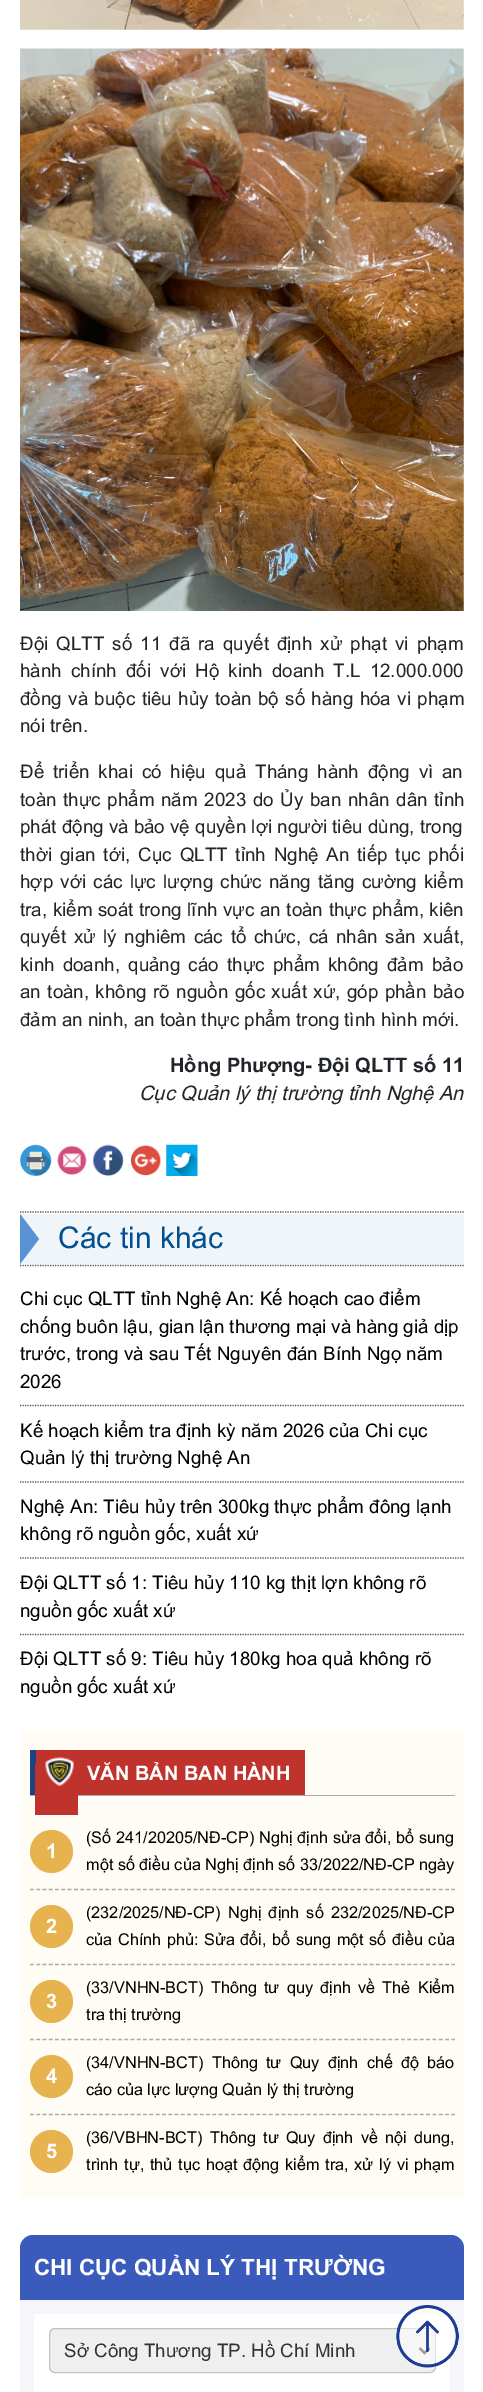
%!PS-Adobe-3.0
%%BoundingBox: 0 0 483 2392
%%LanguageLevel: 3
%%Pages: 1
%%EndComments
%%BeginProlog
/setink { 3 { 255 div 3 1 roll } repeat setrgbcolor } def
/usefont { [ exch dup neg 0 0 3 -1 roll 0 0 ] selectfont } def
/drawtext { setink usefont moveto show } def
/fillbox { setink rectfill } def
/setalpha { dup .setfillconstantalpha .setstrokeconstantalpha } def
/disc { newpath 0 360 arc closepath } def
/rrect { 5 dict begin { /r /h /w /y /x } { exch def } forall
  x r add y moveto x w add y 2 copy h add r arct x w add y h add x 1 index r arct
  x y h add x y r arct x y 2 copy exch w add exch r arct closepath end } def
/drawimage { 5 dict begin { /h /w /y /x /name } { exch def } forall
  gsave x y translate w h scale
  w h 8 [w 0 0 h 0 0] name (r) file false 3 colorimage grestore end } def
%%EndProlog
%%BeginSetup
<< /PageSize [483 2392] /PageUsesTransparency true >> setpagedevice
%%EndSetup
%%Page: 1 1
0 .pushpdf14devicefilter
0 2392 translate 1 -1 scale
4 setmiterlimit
0 0 483 2392 255 255 255 fillbox
(assets/img1.rgb) 20 0 444 30 drawimage
(assets/img2.rgb) 20 48 444 563 drawimage
/Arial-Regular 18.75 usefont
33 37 41 setink
20 650 moveto 2.9 0 32 (Đội QLTT số 11 đã ra quyết định xử phạt vi phạm) widthshow
20 677 moveto 4 0 32 (hành chính đối với Hộ kinh doanh T.L 12.000.000) widthshow
20 705 moveto 1.25 0 32 (đồng và buộc tiêu hủy toàn bộ số hàng hóa vi phạm) widthshow
(nói trên.) 20 732 /Arial-Regular 18.75 33 37 41 drawtext
20 778 moveto 3.75 0 32 (Để triển khai có hiệu quả Tháng hành động vì an) widthshow
20 806 moveto 1.5 0 32 (toàn thực phẩm năm 2023 do Ủy ban nhân dân tỉnh) widthshow
(phát động và bảo vệ quyền lợi người tiêu dùng, trong) 20 833 /Arial-Regular 18.75 33 37 41 drawtext
20 861 moveto 2.75 0 32 (thời gian tới, Cục QLTT tỉnh Nghệ An tiếp tục phối) widthshow
20 888 moveto 2 0 32 (hợp với các lực lượng chức năng tăng cường kiểm) widthshow
20 916 moveto 0.4 0 32 (tra, kiểm soát trong lĩnh vực an toàn thực phẩm, kiên) widthshow
20 943 moveto 2.5 0 32 (quyết xử lý nghiêm các tổ chức, cá nhân sản xuất,) widthshow
20 971 moveto 3 0 32 (kinh doanh, quảng cáo thực phẩm không đảm bảo) widthshow
20 998 moveto 1.25 0 32 (an toàn, không rõ nguồn gốc xuất xứ, góp phần bảo) widthshow
(đảm an ninh, an toàn thực phẩm trong tình hình mới.) 20 1026 /Arial-Regular 18.75 33 37 41 drawtext
(Hồng Phượng- Đội QLTT số 11) 170 1072 /Arial-Bold 20 33 37 41 drawtext
(Cục Quản lý thị trường tỉnh Nghệ An) 139 1100 /Arial-Italic 20 33 37 41 drawtext
(assets/img3.rgb) 20 1144 32 32 drawimage
(assets/img4.rgb) 57 1145 30 31 drawimage
(assets/img5.rgb) 92 1144 32 32 drawimage
(assets/img6.rgb) 130 1145 31 31 drawimage
(assets/img7.rgb) 166 1144 32 32 drawimage
81 81 81 setink
1.2 setlinewidth
[1.25 1.25] 0 setdash
20 1212 moveto 464 1212 lineto stroke
20 1265.5 moveto 464 1265.5 lineto stroke
20 1214 444 50 240 245 249 fillbox
89 145 213 setink
20 1264 moveto 20 1214 lineto 39 1239 lineto closepath fill
(Các tin khác) 58 1248 /Arial-Regular 30 1 79 145 drawtext
81 81 81 setink
20 1405.5 moveto 464 1405.5 lineto stroke
(Chi cục QLTT tỉnh Nghệ An: Kế hoạch cao điểm) 20 1305 /Arial-Regular 18.75 0 0 0 drawtext
(chống buôn lậu, gian lận thương mại và hàng giả dịp) 20 1333 /Arial-Regular 18.75 0 0 0 drawtext
(trước, trong và sau Tết Nguyên đán Bính Ngọ năm) 20 1360 /Arial-Regular 18.75 0 0 0 drawtext
(2026) 20 1388 /Arial-Regular 18.75 0 0 0 drawtext
81 81 81 setink
20 1482 moveto 464 1482 lineto stroke
(Kế hoạch kiểm tra định kỳ năm 2026 của Chi cục) 20 1437 /Arial-Regular 18.75 0 0 0 drawtext
(Quản lý thị trường Nghệ An) 20 1464 /Arial-Regular 18.75 0 0 0 drawtext
81 81 81 setink
20 1558 moveto 464 1558 lineto stroke
(Nghệ An: Tiêu hủy trên 300kg thực phẩm đông lạnh) 20 1513 /Arial-Regular 18.75 0 0 0 drawtext
(không rõ nguồn gốc, xuất xứ) 20 1540 /Arial-Regular 18.75 0 0 0 drawtext
81 81 81 setink
20 1634.5 moveto 464 1634.5 lineto stroke
(Đội QLTT số 1: Tiêu hủy 110 kg thịt lợn không rõ) 20 1589 /Arial-Regular 18.75 0 0 0 drawtext
(nguồn gốc xuất xứ) 20 1617 /Arial-Regular 18.75 0 0 0 drawtext
(Đội QLTT số 9: Tiêu hủy 180kg hoa quả không rõ) 20 1665 /Arial-Regular 18.75 0 0 0 drawtext
(nguồn gốc xuất xứ) 20 1693 /Arial-Regular 18.75 0 0 0 drawtext
20 1731 444 467 255 252 246 fillbox
30 1795 425 1 172 171 168 fillbox
36 1750 269 45 191 51 44 fillbox
30 1750 6 45 28 67 130 fillbox
35 1765 43 50 191 51 44 fillbox
(assets/img8.rgb) 45 1757 29 29 drawimage
(VĂN BẢN BAN HÀNH) 87 1780 /Arial-Bold 20 255 255 255 drawtext
172 171 168 setink
[3.75 2.54] 0 setdash
30 1889.5 moveto 455 1889.5 lineto stroke
231 179 79 setink
51.5 1851.5 21.5 disc fill
(1) 46 1858 /Arial-Bold 20 255 255 255 drawtext
/Arial-Regular 16.25 usefont
0 0 0 setink
86 1843 moveto 0.25 0 32 (\(Số 241/20205/NĐ-CP\) Nghị định sửa đổi, bổ sung) widthshow
(một số điều của Nghị định số 33/2022/NĐ-CP ngày) 86 1870 /Arial-Regular 16.25 0 0 0 drawtext
172 171 168 setink
30 1964.5 moveto 455 1964.5 lineto stroke
231 179 79 setink
51.5 1926.5 21.5 disc fill
(2) 46 1933 /Arial-Bold 20 255 255 255 drawtext
/Arial-Regular 16.25 usefont
0 0 0 setink
86 1918 moveto 2.75 0 32 (\(232/2025/NĐ-CP\) Nghị định số 232/2025/NĐ-CP) widthshow
86 1945 moveto 1.1 0 32 (của Chính phủ: Sửa đổi, bổ sung một số điều của) widthshow
172 171 168 setink
30 2039.5 moveto 455 2039.5 lineto stroke
231 179 79 setink
51.5 2001.5 21.5 disc fill
(3) 46 2008 /Arial-Bold 20 255 255 255 drawtext
/Arial-Regular 16.25 usefont
0 0 0 setink
86 1993 moveto 2.75 0 32 (\(33/VNHN-BCT\) Thông tư quy định về Thẻ Kiểm) widthshow
(tra thị trường) 86 2020 /Arial-Regular 16.25 0 0 0 drawtext
172 171 168 setink
30 2114.5 moveto 455 2114.5 lineto stroke
231 179 79 setink
51.5 2076.5 21.5 disc fill
(4) 46 2083 /Arial-Bold 20 255 255 255 drawtext
/Arial-Regular 16.25 usefont
0 0 0 setink
86 2068 moveto 3.75 0 32 (\(34/VNHN-BCT\) Thông tư Quy định chế độ báo) widthshow
(cáo của lực lượng Quản lý thị trường) 86 2095 /Arial-Regular 16.25 0 0 0 drawtext
231 179 79 setink
51.5 2151.5 21.5 disc fill
(5) 46 2158 /Arial-Bold 20 255 255 255 drawtext
/Arial-Regular 16.25 usefont
0 0 0 setink
86 2143 moveto 2.75 0 32 (\(36/VBHN-BCT\) Thông tư Quy định về nội dung,) widthshow
86 2170 moveto 1.25 0 32 (trình tự, thủ tục hoạt động kiểm tra, xử lý vi phạm) widthshow
59 91 188 setink
33 2235 moveto 451 2235 lineto 458 2235 464 2241 464 2248 curveto 464 2300 lineto 20 2300 lineto 20 2248 lineto 20 2241 26 2235 33 2235 curveto closepath fill
(CHI CỤC QUẢN LÝ THỊ TRƯỜNG) 34 2275 /Arial-Bold 22.5 255 255 255 drawtext
20 2300 444 92 244 246 250 fillbox
34 2314 416 78 255 255 255 fillbox
239 239 239 setink
49 2328 387 45 6 rrect fill
0.31 setalpha
89 89 89 setink
1 setlinewidth
[] 0 setdash
49.5 2328.5 386 44 5.5 rrect stroke
1 setalpha
51 51 51 setink
2.5 setlinewidth
419.5 2348 moveto 424.5 2353 lineto 429.5 2348 lineto stroke
(Sở Công Thương TP. Hồ Chí Minh) 64 2357 /Arial-Regular 18.75 51 51 51 drawtext
0.5 setalpha
255 255 255 setink
427.5 2336.5 31.5 disc fill
1 setalpha
(assets/img9.rgb) 396 2305 63 63 drawimage
.poppdf14devicefilter showpage
%%EOF
